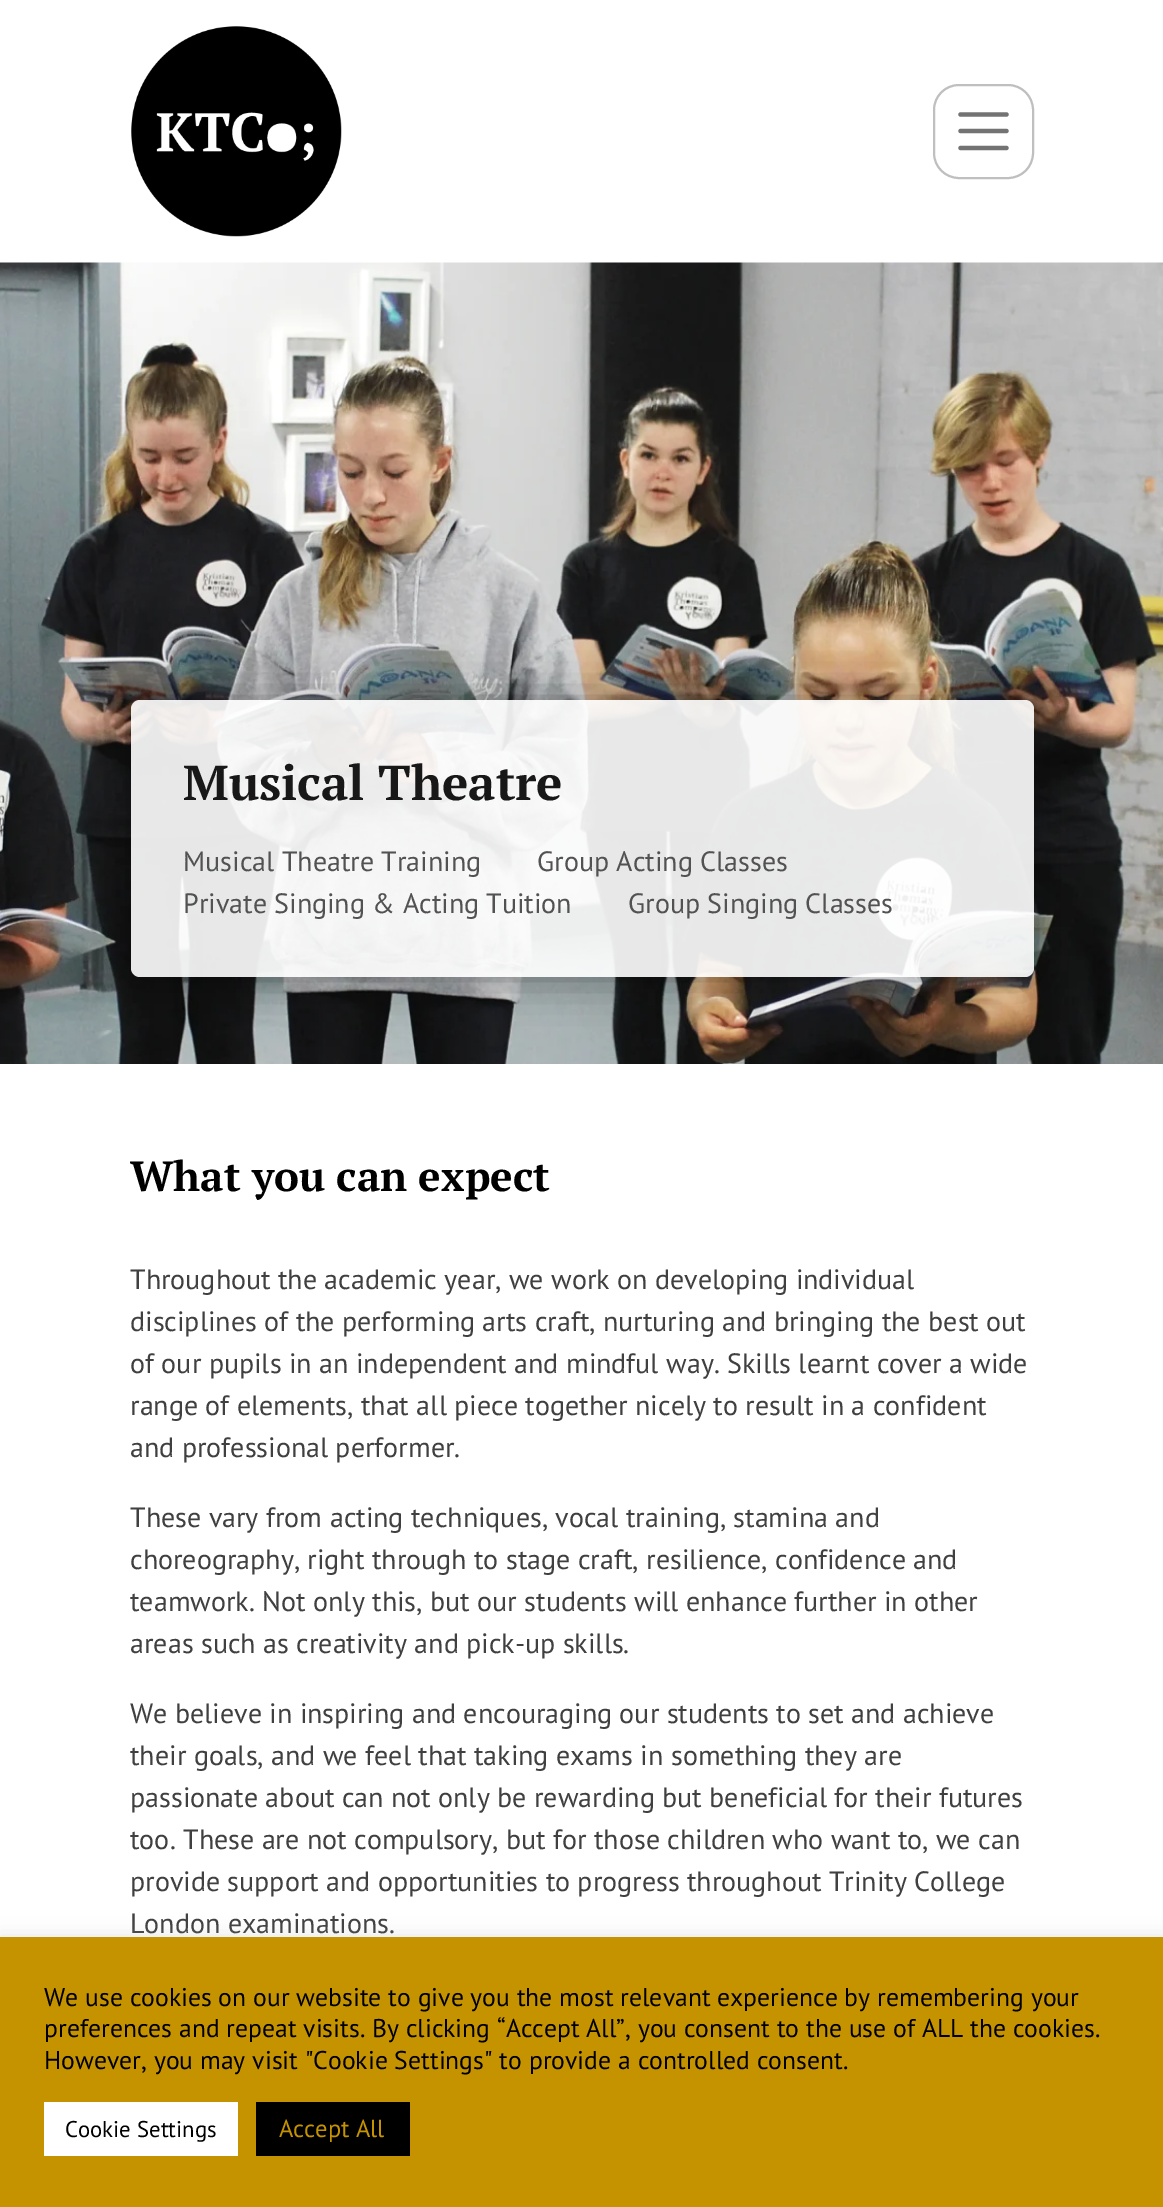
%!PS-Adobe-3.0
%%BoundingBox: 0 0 1163 2207
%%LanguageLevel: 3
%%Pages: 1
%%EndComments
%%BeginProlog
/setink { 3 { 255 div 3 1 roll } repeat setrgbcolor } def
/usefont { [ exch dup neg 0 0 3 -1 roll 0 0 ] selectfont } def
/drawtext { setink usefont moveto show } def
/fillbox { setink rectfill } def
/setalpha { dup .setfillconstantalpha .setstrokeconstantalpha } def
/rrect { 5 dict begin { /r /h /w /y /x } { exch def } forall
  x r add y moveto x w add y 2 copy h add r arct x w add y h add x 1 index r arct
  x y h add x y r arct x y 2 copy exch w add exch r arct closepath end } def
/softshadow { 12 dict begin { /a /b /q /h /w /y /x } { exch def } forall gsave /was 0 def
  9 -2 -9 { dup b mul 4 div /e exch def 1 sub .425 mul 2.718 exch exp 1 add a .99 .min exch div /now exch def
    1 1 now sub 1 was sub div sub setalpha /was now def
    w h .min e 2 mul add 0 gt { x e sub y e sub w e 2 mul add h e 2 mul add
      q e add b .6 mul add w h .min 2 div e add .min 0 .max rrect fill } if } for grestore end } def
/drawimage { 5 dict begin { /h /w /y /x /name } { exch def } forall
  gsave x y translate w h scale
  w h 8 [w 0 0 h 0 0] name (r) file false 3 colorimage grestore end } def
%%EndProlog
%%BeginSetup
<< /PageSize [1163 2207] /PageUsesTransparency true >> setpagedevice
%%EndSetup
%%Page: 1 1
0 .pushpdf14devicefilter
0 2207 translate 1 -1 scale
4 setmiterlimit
0 0 1163 2207 255 255 255 fillbox
(assets/img1.rgb) 131 26 211 211 drawimage
191 191 191 setink
2 setlinewidth
934 85 99 93 25 rrect stroke
115 115 115 setink
4.2 setlinewidth
1 setlinecap
960.5 114.5 moveto 1006.5 114.5 lineto 960.5 131 moveto 1006.5 131 lineto 960.5 148 moveto 1006.5 148 lineto stroke
(assets/img2.rgb) 0 262 1163 802 drawimage
gsave
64 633 moveto 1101 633 lineto 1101 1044 lineto 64 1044 lineto closepath 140 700 moveto 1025 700 lineto 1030 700 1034 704 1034 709 curveto 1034 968 lineto 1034 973 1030 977 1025 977 curveto 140 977 lineto 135 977 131 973 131 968 curveto 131 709 lineto 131 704 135 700 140 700 curveto closepath eoclip newpath
0 0 0 setink
131 700 903 277 9 22 0.36 softshadow
grestore
0.9 setalpha
255 255 255 setink
131 700 903 277 9 rrect fill
1 setalpha
(Musical Theatre) 183 800 /PTSerif-Bold 49 24 24 24 drawtext
(Musical Theatre Training) 183 871 /PTSans-Regular 28 82 82 82 drawtext
(Group Acting Classes) 537 871 /PTSans-Regular 28 82 82 82 drawtext
(Private Singing & Acting Tuition) 183 913 /PTSans-Regular 28 82 82 82 drawtext
(Group Singing Classes) 628 913 /PTSans-Regular 28 82 82 82 drawtext
(What you can expect) 130 1191 /PTSerif-Bold 42 0 0 0 drawtext
(Throughout the academic year, we work on developing individual) 130 1289 /PTSans-Regular 28 64 64 64 drawtext
(disciplines of the performing arts craft, nurturing and bringing the best out) 130 1331 /PTSans-Regular 28 64 64 64 drawtext
(of our pupils in an independent and mindful way. Skills learnt cover a wide) 130 1373 /PTSans-Regular 28 64 64 64 drawtext
(range of elements, that all piece together nicely to result in a confident) 130 1415 /PTSans-Regular 28 64 64 64 drawtext
(and professional performer.) 130 1457 /PTSans-Regular 28 64 64 64 drawtext
(These vary from acting techniques, vocal training, stamina and) 130 1527 /PTSans-Regular 28 64 64 64 drawtext
(choreography, right through to stage craft, resilience, confidence and) 130 1569 /PTSans-Regular 28 64 64 64 drawtext
(teamwork. Not only this, but our students will enhance further in other) 130 1611 /PTSans-Regular 28 64 64 64 drawtext
(areas such as creativity and pick-up skills.) 130 1653 /PTSans-Regular 28 64 64 64 drawtext
(We believe in inspiring and encouraging our students to set and achieve) 130 1723 /PTSans-Regular 28 64 64 64 drawtext
(their goals, and we feel that taking exams in something they are) 130 1765 /PTSans-Regular 28 64 64 64 drawtext
(passionate about can not only be rewarding but beneficial for their futures) 130 1807 /PTSans-Regular 28 64 64 64 drawtext
(too. These are not compulsory, but for those children who want to, we can) 130 1849 /PTSans-Regular 28 64 64 64 drawtext
(provide support and opportunities to progress throughout Trinity College) 130 1891 /PTSans-Regular 28 64 64 64 drawtext
(London examinations.) 130 1933 /PTSans-Regular 28 64 64 64 drawtext
172 171 171 setink
0 1936 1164 271 0 9 0.3 softshadow
0 1937 1163 270 198 147 0 fillbox
(We use cookies on our website to give you the most relevant experience by remembering your) 44 2006 /PTSans-Regular 25.65 0 0 0 drawtext
(preferences and repeat visits. By clicking “Accept All”, you consent to the use of ALL the cookies.) 44 2037 /PTSans-Regular 25.65 0 0 0 drawtext
(However, you may visit "Cookie Settings" to provide a controlled consent.) 44 2069 /PTSans-Regular 25.65 0 0 0 drawtext
44 2102 194 54 255 255 255 fillbox
(Cookie Settings) 65 2137 /PTSans-Regular 22.75 0 0 0 drawtext
256 2102 154 54 0 0 0 fillbox
(Accept All) 279 2137 /PTSans-Regular 24.5 198 147 0 drawtext
.poppdf14devicefilter showpage
%%EOF
